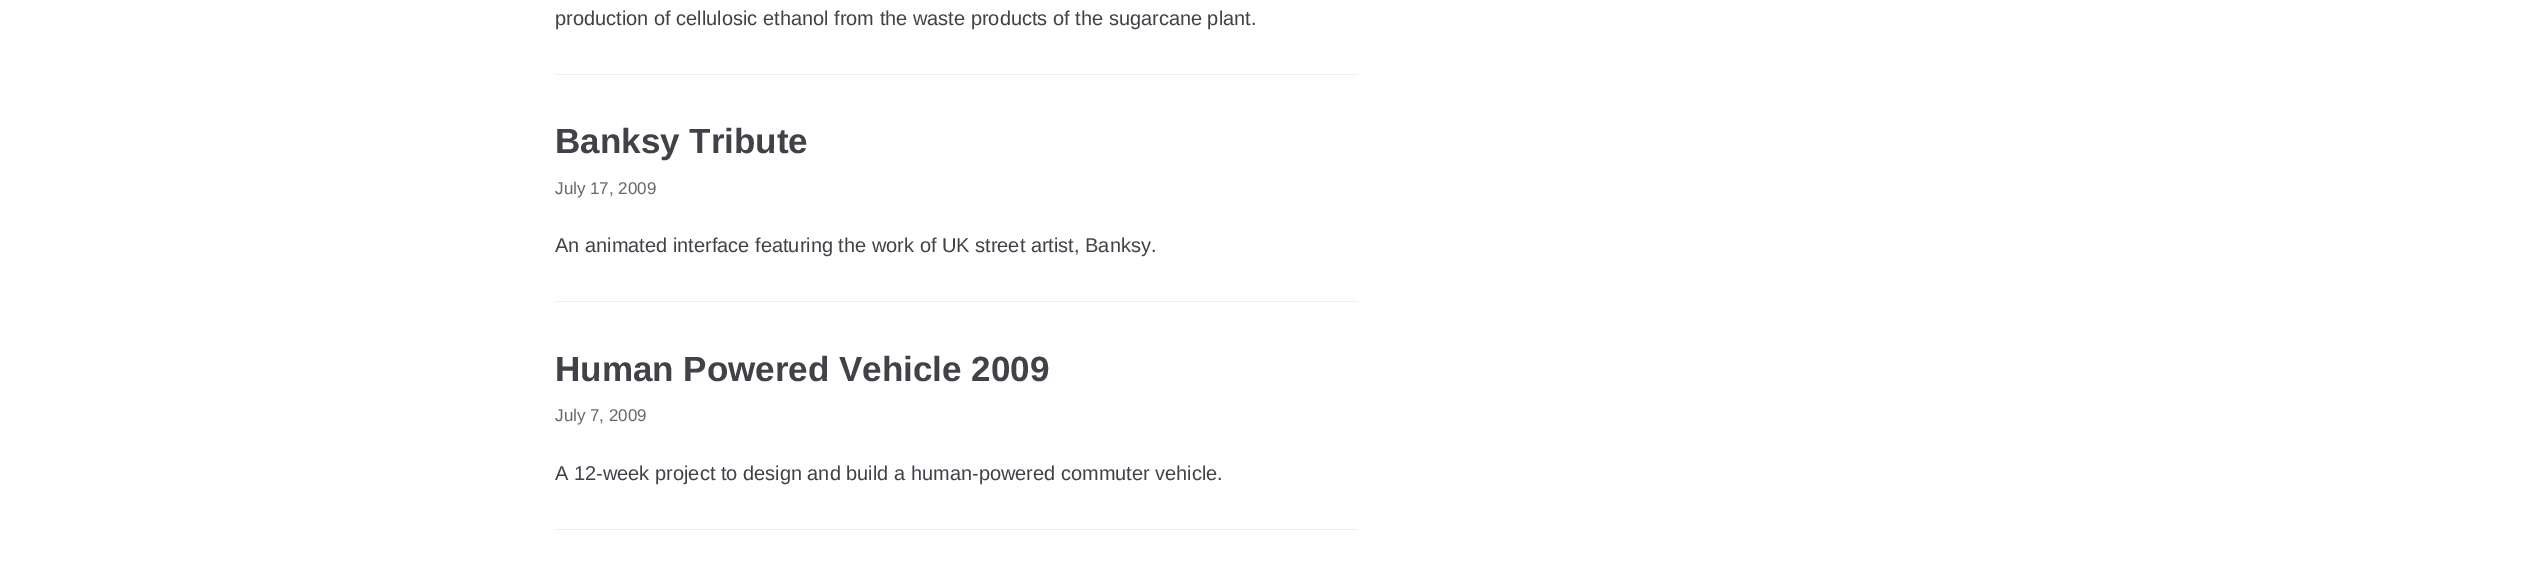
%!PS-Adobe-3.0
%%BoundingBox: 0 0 2534 585
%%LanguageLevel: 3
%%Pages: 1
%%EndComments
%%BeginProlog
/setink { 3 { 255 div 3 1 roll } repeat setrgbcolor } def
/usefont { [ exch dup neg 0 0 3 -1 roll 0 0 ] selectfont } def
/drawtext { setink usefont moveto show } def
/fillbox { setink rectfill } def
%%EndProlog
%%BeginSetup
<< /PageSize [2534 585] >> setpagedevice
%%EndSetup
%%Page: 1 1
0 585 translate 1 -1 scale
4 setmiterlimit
0 0 2534 585 255 255 255 fillbox
555 74 803 1 240 240 240 fillbox
(production of cellulosic ethanol from the waste products of the sugarcane plant.) 555 25 /LiberationSans-Regular 20 64 66 72 drawtext
555 301 803 1 240 240 240 fillbox
(Banksy Tribute) 555 153 /LiberationSans-Bold 35 64 66 72 drawtext
(July 17, 2009) 555 194 /LiberationSans-Regular 17 103 103 103 drawtext
(An animated interface featuring the work of UK street artist, Banksy.) 555 252 /LiberationSans-Regular 20 64 66 72 drawtext
555 529 803 1 240 240 240 fillbox
(Human Powered Vehicle 2009) 555 381 /LiberationSans-Bold 35 64 66 72 drawtext
(July 7, 2009) 555 421 /LiberationSans-Regular 17 103 103 103 drawtext
(A 12-week project to design and build a human-powered commuter vehicle.) 555 480 /LiberationSans-Regular 20 64 66 72 drawtext
showpage
%%EOF
